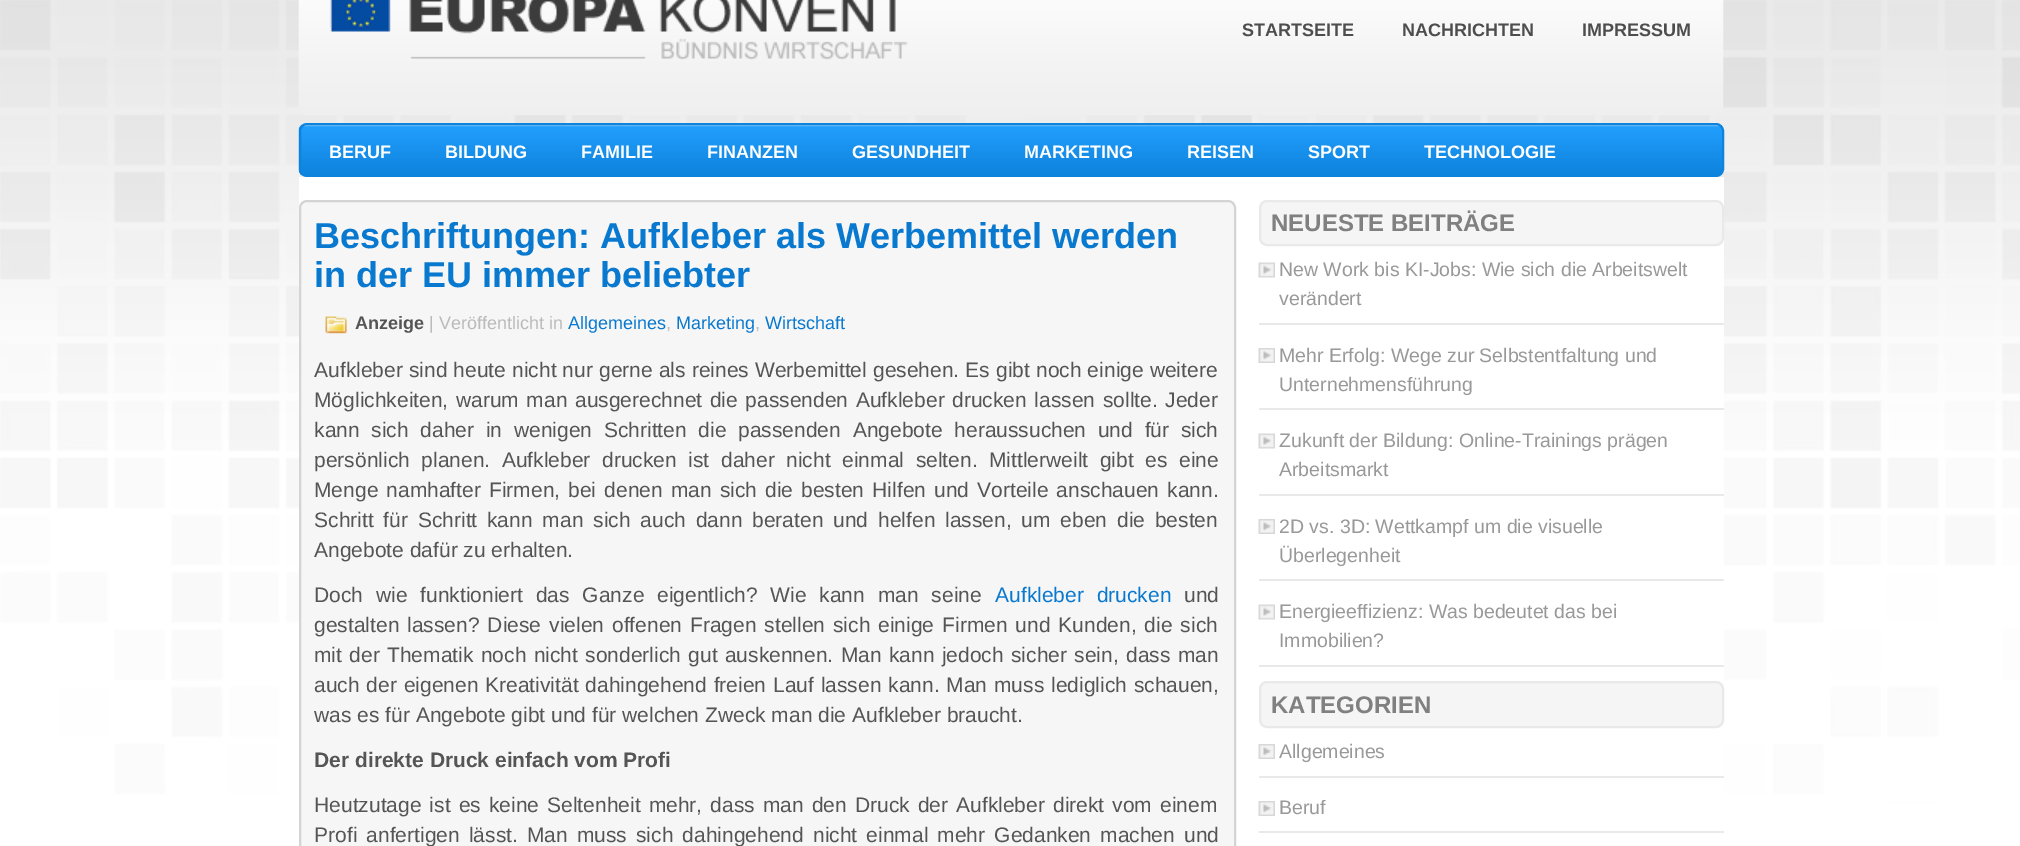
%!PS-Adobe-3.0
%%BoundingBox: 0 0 2020 846
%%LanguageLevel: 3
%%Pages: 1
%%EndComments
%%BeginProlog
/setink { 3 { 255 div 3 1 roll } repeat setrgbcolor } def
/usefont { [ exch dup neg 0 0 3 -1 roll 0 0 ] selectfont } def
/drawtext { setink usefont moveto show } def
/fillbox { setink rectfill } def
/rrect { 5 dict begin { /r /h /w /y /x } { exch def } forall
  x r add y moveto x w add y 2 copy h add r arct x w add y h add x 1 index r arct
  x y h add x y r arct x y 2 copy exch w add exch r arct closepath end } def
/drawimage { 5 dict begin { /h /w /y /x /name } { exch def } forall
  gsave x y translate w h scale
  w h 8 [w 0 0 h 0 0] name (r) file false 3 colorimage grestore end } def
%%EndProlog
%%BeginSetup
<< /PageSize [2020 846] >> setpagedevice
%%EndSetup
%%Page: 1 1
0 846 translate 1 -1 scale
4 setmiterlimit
0 0 2020 846 255 255 255 fillbox
(assets/img1.rgb) 0 0 2020 804 drawimage
(assets/img2.rgb) 298 0 1426 115 drawimage
(assets/img3.rgb) 329 0 579 60 drawimage
(STARTSEITE) 1242 36 /LiberationSans-Bold 18 78 77 77 drawtext
(NACHRICHTEN) 1402 36 /LiberationSans-Bold 18 78 77 77 drawtext
(IMPRESSUM) 1582 36 /LiberationSans-Bold 18 78 77 77 drawtext
(assets/img4.rgb) 298 124 1426 52 drawimage
13 131 221 setink
2 setlinewidth
300 124 1423 52 7 rrect stroke
(BERUF) 329 158 /LiberationSans-Bold 18 255 255 255 drawtext
(BILDUNG) 445 158 /LiberationSans-Bold 18 255 255 255 drawtext
(FAMILIE) 581 158 /LiberationSans-Bold 18 255 255 255 drawtext
(FINANZEN) 707 158 /LiberationSans-Bold 18 255 255 255 drawtext
(GESUNDHEIT) 852 158 /LiberationSans-Bold 18 255 255 255 drawtext
(MARKETING) 1024 158 /LiberationSans-Bold 18 255 255 255 drawtext
(REISEN) 1187 158 /LiberationSans-Bold 18 255 255 255 drawtext
(SPORT) 1308 158 /LiberationSans-Bold 18 255 255 255 drawtext
(TECHNOLOGIE) 1424 158 /LiberationSans-Bold 18 255 255 255 drawtext
299 177 1425 627 255 255 255 fillbox
246 246 246 setink
300 201 935 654 7 rrect gsave fill grestore
212 212 212 setink
stroke
(Beschriftungen: Aufkleber als Werbemittel werden) 314 248 /LiberationSans-Bold 36 9 121 207 drawtext
(in der EU immer beliebter) 314 287 /LiberationSans-Bold 36 9 121 207 drawtext
(assets/img5.rgb) 325 316 22 18 drawimage
(Anzeige) 355 329 /LiberationSans-Bold 18 85 85 85 drawtext
(| Veröffentlicht in) 429 329 /LiberationSans-Regular 18 187 187 187 drawtext
(Allgemeines) 568 329 /LiberationSans-Regular 18 9 121 207 drawtext
(,) 666 329 /LiberationSans-Regular 18 187 187 187 drawtext
(Marketing) 676 329 /LiberationSans-Regular 18 9 121 207 drawtext
(,) 755 329 /LiberationSans-Regular 18 187 187 187 drawtext
(Wirtschaft) 765 329 /LiberationSans-Regular 18 9 121 207 drawtext
/LiberationSans-Regular 21 usefont
85 85 85 setink
314 377 moveto 0.25 0 32 (Aufkleber sind heute nicht nur gerne als reines Werbemittel gesehen. Es gibt noch einige weitere) widthshow
314 407 moveto 1.8 0 32 (Möglichkeiten, warum man ausgerechnet die passenden Aufkleber drucken lassen sollte. Jeder) widthshow
314 437 moveto 5.9 0 32 (kann sich daher in wenigen Schritten die passenden Angebote heraussuchen und für sich) widthshow
314 467 moveto 5.75 0 32 (persönlich planen. Aufkleber drucken ist daher nicht einmal selten. Mittlerweilt gibt es eine) widthshow
314 497 moveto 2.25 0 32 (Menge namhafter Firmen, bei denen man sich die besten Hilfen und Vorteile anschauen kann.) widthshow
314 527 moveto 4 0 32 (Schritt für Schritt kann man sich auch dann beraten und helfen lassen, um eben die besten) widthshow
(Angebote dafür zu erhalten.) 314 557 /LiberationSans-Regular 21 85 85 85 drawtext
314 602 moveto 7 0 32 (Doch wie funktioniert das Ganze eigentlich? Wie kann man seine) widthshow
9 121 207 setink
995 602 moveto 7 0 32 (Aufkleber drucken) widthshow
(und) 1184 602 /LiberationSans-Regular 21 85 85 85 drawtext
314 632 moveto 2.1 0 32 (gestalten lassen? Diese vielen offenen Fragen stellen sich einige Firmen und Kunden, die sich) widthshow
314 662 moveto 1.5 0 32 (mit der Thematik noch nicht sonderlich gut auskennen. Man kann jedoch sicher sein, dass man) widthshow
314 692 moveto 1 0 32 (auch der eigenen Kreativität dahingehend freien Lauf lassen kann. Man muss lediglich schauen,) widthshow
(was es für Angebote gibt und für welchen Zweck man die Aufkleber braucht.) 314 722 /LiberationSans-Regular 21 85 85 85 drawtext
(Der direkte Druck einfach vom Profi) 314 767 /LiberationSans-Bold 21 85 85 85 drawtext
/LiberationSans-Regular 21 usefont
314 812 moveto 2.25 0 32 (Heutzutage ist es keine Seltenheit mehr, dass man den Druck der Aufkleber direkt vom einem) widthshow
314 842 moveto 3.25 0 32 (Profi anfertigen lässt. Man muss sich dahingehend nicht einmal mehr Gedanken machen und) widthshow
245 245 245 setink
1260 201 463 44 7 rrect gsave fill grestore
233 233 233 setink
stroke
(NEUESTE BEITRÄGE) 1271 231 /LiberationSans-Bold 24 128 128 128 drawtext
(assets/img6.rgb) 1258 262 17 16 drawimage
1259 323 465 2 233 233 233 fillbox
(New Work bis KI-Jobs: Wie sich die Arbeitswelt) 1279 276 /LiberationSans-Regular 19.5 153 153 153 drawtext
(verändert) 1279 305 /LiberationSans-Regular 19.5 153 153 153 drawtext
(assets/img7.rgb) 1258 348 17 15 drawimage
1259 408 465 2 233 233 233 fillbox
(Mehr Erfolg: Wege zur Selbstentfaltung und) 1279 362 /LiberationSans-Regular 19.5 153 153 153 drawtext
(Unternehmensführung) 1279 391 /LiberationSans-Regular 19.5 153 153 153 drawtext
(assets/img6.rgb) 1258 433 17 16 drawimage
1259 494 465 2 233 233 233 fillbox
(Zukunft der Bildung: Online-Trainings prägen) 1279 447 /LiberationSans-Regular 19.5 153 153 153 drawtext
(Arbeitsmarkt) 1279 476 /LiberationSans-Regular 19.5 153 153 153 drawtext
(assets/img7.rgb) 1258 519 17 15 drawimage
1259 579 465 2 233 233 233 fillbox
(2D vs. 3D: Wettkampf um die visuelle) 1279 533 /LiberationSans-Regular 19.5 153 153 153 drawtext
(Überlegenheit) 1279 562 /LiberationSans-Regular 19.5 153 153 153 drawtext
(assets/img6.rgb) 1258 604 17 16 drawimage
1259 665 465 2 233 233 233 fillbox
(Energieeffizienz: Was bedeutet das bei) 1279 618 /LiberationSans-Regular 19.5 153 153 153 drawtext
(Immobilien?) 1279 647 /LiberationSans-Regular 19.5 153 153 153 drawtext
245 245 245 setink
1260 682 463 45 7 rrect gsave fill grestore
233 233 233 setink
stroke
(KATEGORIEN) 1271 713 /LiberationSans-Bold 24 128 128 128 drawtext
(assets/img7.rgb) 1258 744 17 15 drawimage
1259 776 465 2 233 233 233 fillbox
(Allgemeines) 1279 758 /LiberationSans-Regular 19.5 153 153 153 drawtext
(assets/img7.rgb) 1258 801 17 15 drawimage
1259 831 465 2 233 233 233 fillbox
(Beruf) 1279 814 /LiberationSans-Regular 19.5 153 153 153 drawtext
showpage
%%EOF
